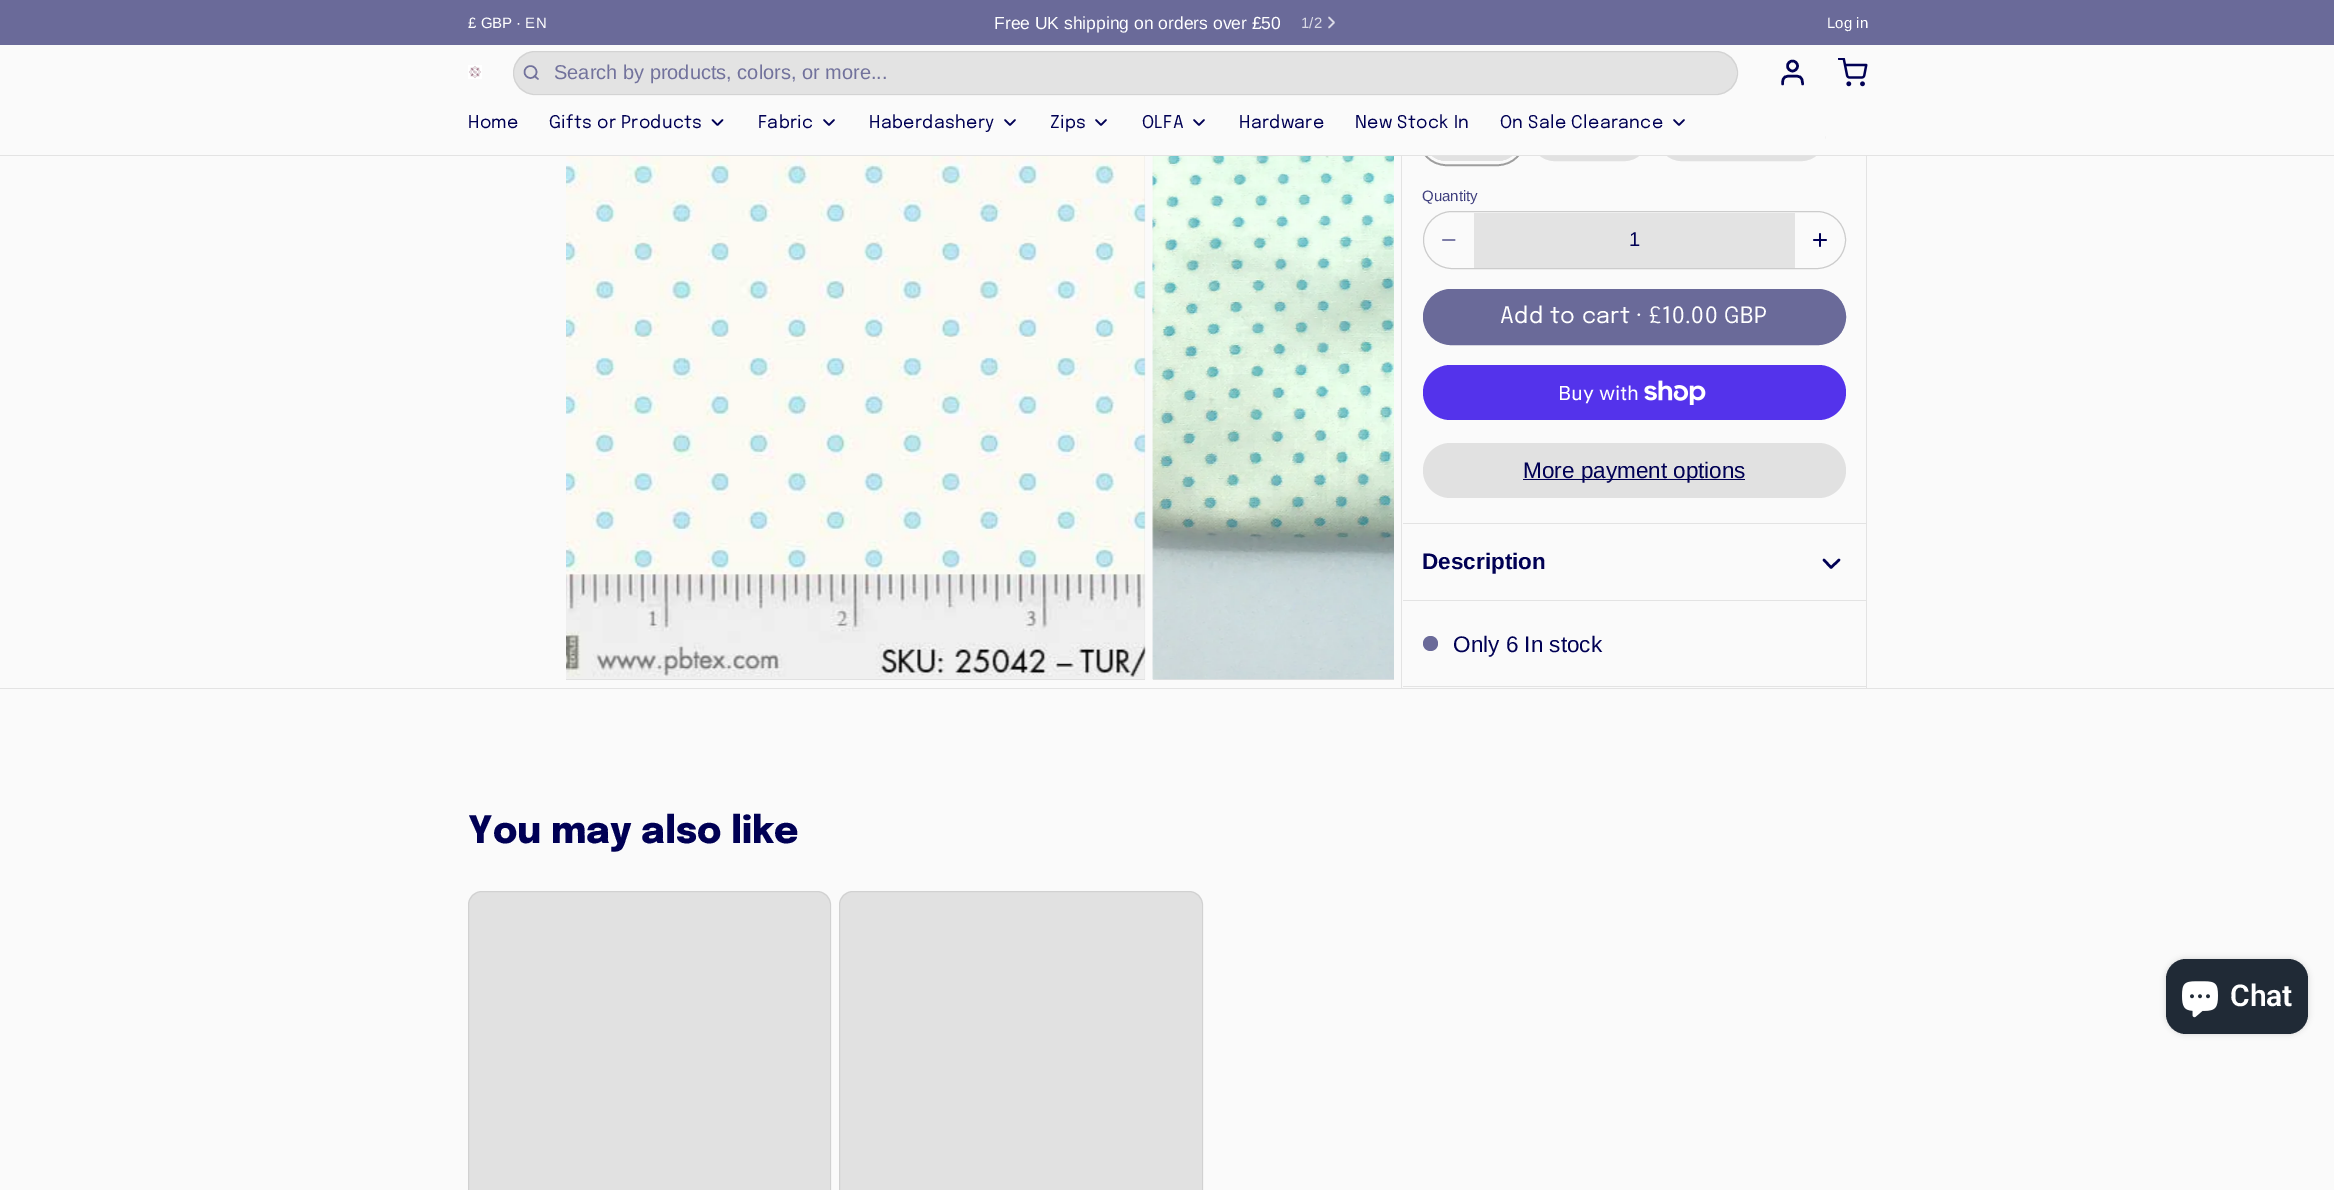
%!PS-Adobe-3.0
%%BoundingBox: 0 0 2334 1190
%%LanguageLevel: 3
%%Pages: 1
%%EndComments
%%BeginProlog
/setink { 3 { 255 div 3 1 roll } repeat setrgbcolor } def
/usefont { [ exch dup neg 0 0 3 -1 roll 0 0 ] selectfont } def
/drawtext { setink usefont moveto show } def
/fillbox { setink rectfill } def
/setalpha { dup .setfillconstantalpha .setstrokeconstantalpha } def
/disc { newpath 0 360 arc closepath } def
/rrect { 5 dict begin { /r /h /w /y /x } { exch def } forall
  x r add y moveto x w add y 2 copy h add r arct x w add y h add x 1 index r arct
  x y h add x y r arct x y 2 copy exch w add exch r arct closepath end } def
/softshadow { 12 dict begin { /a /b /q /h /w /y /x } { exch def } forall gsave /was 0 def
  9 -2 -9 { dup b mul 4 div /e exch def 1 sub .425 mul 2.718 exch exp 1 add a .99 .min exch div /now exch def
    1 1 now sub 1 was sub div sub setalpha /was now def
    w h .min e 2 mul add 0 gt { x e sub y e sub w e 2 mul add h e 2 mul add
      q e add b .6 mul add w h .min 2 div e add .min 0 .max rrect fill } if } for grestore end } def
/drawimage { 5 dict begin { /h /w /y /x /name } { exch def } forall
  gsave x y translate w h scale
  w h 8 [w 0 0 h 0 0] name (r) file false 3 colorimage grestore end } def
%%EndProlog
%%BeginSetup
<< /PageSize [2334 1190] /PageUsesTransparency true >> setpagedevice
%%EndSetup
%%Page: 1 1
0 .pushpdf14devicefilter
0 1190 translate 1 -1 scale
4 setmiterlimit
0 0 2334 1190 250 250 250 fillbox
0 0 2334 45 106 106 153 fillbox
(£ GBP · EN) 468 28 /LiberationSans-Regular 15 255 255 255 drawtext
(Free UK shipping on orders over £50) 994 29 /LiberationSans-Regular 17.5 255 255 255 drawtext
(1/2) 1301 28 /LiberationSans-Regular 15 218 218 230 drawtext
1.7 setlinewidth
1 setlinecap
1 setlinejoin
1329 27.5 moveto 1334 22.5 lineto 1329 17.5 lineto stroke
(Log in) 1827 28 /LiberationSans-Regular 15 255 255 255 drawtext
158 158 158 setink
5 setlinewidth
0 setlinecap
0 setlinejoin
1420.5 111.5 103 52 26 rrect stroke
250 250 250 setink
3 setlinewidth
1421.5 112.5 101 50 25 rrect stroke
225 225 225 setink
1423 114 98 47 23.5 rrect fill
1531.5 114.5 116 46 23 rrect gsave fill grestore
1 setlinewidth
stroke
1658.5 114.5 166 46 23 rrect gsave fill grestore
stroke
1418 109 407 46 250 250 250 fillbox
0 155 2334 1 227 227 227 fillbox
(assets/img1.rgb) 468 65 14 14 drawimage
513 51 1225 44 22 rrect fill
0.3 setalpha
173 173 173 setink
513.5 51.5 1224 43 21.5 rrect stroke
1 setalpha
114 114 156 setink
1.5 setlinewidth
530.5 72 6 disc stroke
1 setlinecap
1 setlinejoin
538 79 moveto 534.5 76 lineto stroke
(Search by products, colors, or more...) 554 79 /LiberationSans-Regular 20 114 114 156 drawtext
0 0 84 setink
2.5 setlinewidth
1802.5 84 moveto 1802.5 76 1799.5 76 1792.5 76 curveto 1785.5 76 1782.5 76 1782.5 84 curveto stroke
0 setlinecap
0 setlinejoin
1792.5 66 5 disc stroke
(assets/img2.rgb) 1838 58 30 29 drawimage
/Epilogue-Regular 17.5 usefont
468 128 moveto 0.4 0 (Home) ashow
549 128 moveto 0.4 0 (Gifts or Products) ashow
1.7 setlinewidth
1 setlinecap
1 setlinejoin
712.5 120 moveto 717.5 125 lineto 722.5 120 lineto stroke
758 128 moveto 0.4 0 (Fabric) ashow
824 120 moveto 829 125 lineto 834 120 lineto stroke
869 128 moveto 0.4 0 (Haberdashery) ashow
1005 120 moveto 1010 125 lineto 1015 120 lineto stroke
1050 128 moveto 0.4 0 (Zips) ashow
1096 120 moveto 1101 125 lineto 1106 120 lineto stroke
1142 128 moveto 0.4 0 (OLFA) ashow
1194 120 moveto 1199 125 lineto 1204 120 lineto stroke
1239 128 moveto 0.4 0 (Hardware) ashow
1355 128 moveto 0.4 0 (New Stock In) ashow
1500 128 moveto 0.4 0 (On Sale Clearance) ashow
1674 120 moveto 1679 125 lineto 1684 120 lineto stroke
566 156 579 524 225 225 225 fillbox
(assets/img3.rgb) 566 156 580 523 drawimage
1153 156 241 524 225 225 225 fillbox
(assets/img4.rgb) 1152 156 242 524 drawimage
1866 156 1 532 227 227 227 fillbox
1401 156 1 532 227 227 227 fillbox
1403 523 463 1 227 227 227 fillbox
(Quantity) 1422 201 /LiberationSans-Regular 15 63 63 126 drawtext
204 204 204 setink
1 setlinewidth
0 setlinecap
0 setlinejoin
1423.5 211.5 422 57 28.5 rrect stroke
125 125 167 setink
1.7 setlinewidth
1 setlinecap
1 setlinejoin
1443 240 moveto 1454.5 240 lineto stroke
1474 213 321 55 227 227 227 fillbox
(1) 1629 246 /LiberationSans-Regular 20 0 0 84 drawtext
1820 234 moveto 1820 246 lineto 1814 240 moveto 1826 240 lineto stroke
106 106 153 setink
1423.5 289.5 422 55 27.5 rrect gsave fill grestore
1 setlinewidth
0 setlinecap
0 setlinejoin
stroke
/Epilogue-Regular 22.5 usefont
255 255 255 setink
1500 323 moveto 0.5 0 (Add to cart ·) ashow
1649 323 moveto 0.5 0 (£10.00 GBP) ashow
84 51 235 setink
1423 365 423 55 27.5 rrect fill
(Buy with) 1558 400 /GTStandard-Regular 20 255 255 255 drawtext
(assets/img5.rgb) 1644 380 62 25 drawimage
225 225 225 setink
1423 443 423 55 27.5 rrect fill
1523 479 222 1 0 0 84 fillbox
(More payment options) 1523 478 /LiberationSans-Regular 22.5 0 0 84 drawtext
1403 600 463 1 227 227 227 fillbox
(Description) 1422 569 /LiberationSans-Bold 22.5 0 0 84 drawtext
2.5 setlinewidth
1 setlinecap
1 setlinejoin
1824 560 moveto 1831 567.5 lineto 1839 560 lineto stroke
1403 686 463 1 227 227 227 fillbox
106 106 153 setink
1430.5 643.5 7.5 disc fill
(Only 6 In stock) 1453 652 /LiberationSans-Regular 22.5 0 0 84 drawtext
0 688 2334 1 227 227 227 fillbox
(You may also like) 468 843 /Epilogue-ExtraBold 37.5 0 0 84 drawtext
225 225 225 setink
468 891 363 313 14 rrect fill
0.3 setalpha
173 173 173 setink
1 setlinewidth
0 setlinecap
0 setlinejoin
468.5 891.5 362 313 13.5 rrect stroke
1 setalpha
225 225 225 setink
839 891 364 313 14 rrect fill
0.3 setalpha
173 173 173 setink
839.5 891.5 363 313 13.5 rrect stroke
1 setalpha
0 0 0 setink
2166 959 142 75 20 3 0.15 softshadow
32 42 54 setink
2166 959 142 75 20 rrect fill
(assets/img6.rgb) 2182 981 36 37 drawimage
(Chat) 2230 1006 /Roboto-SemiBold 30 255 255 255 drawtext
.poppdf14devicefilter showpage
%%EOF
